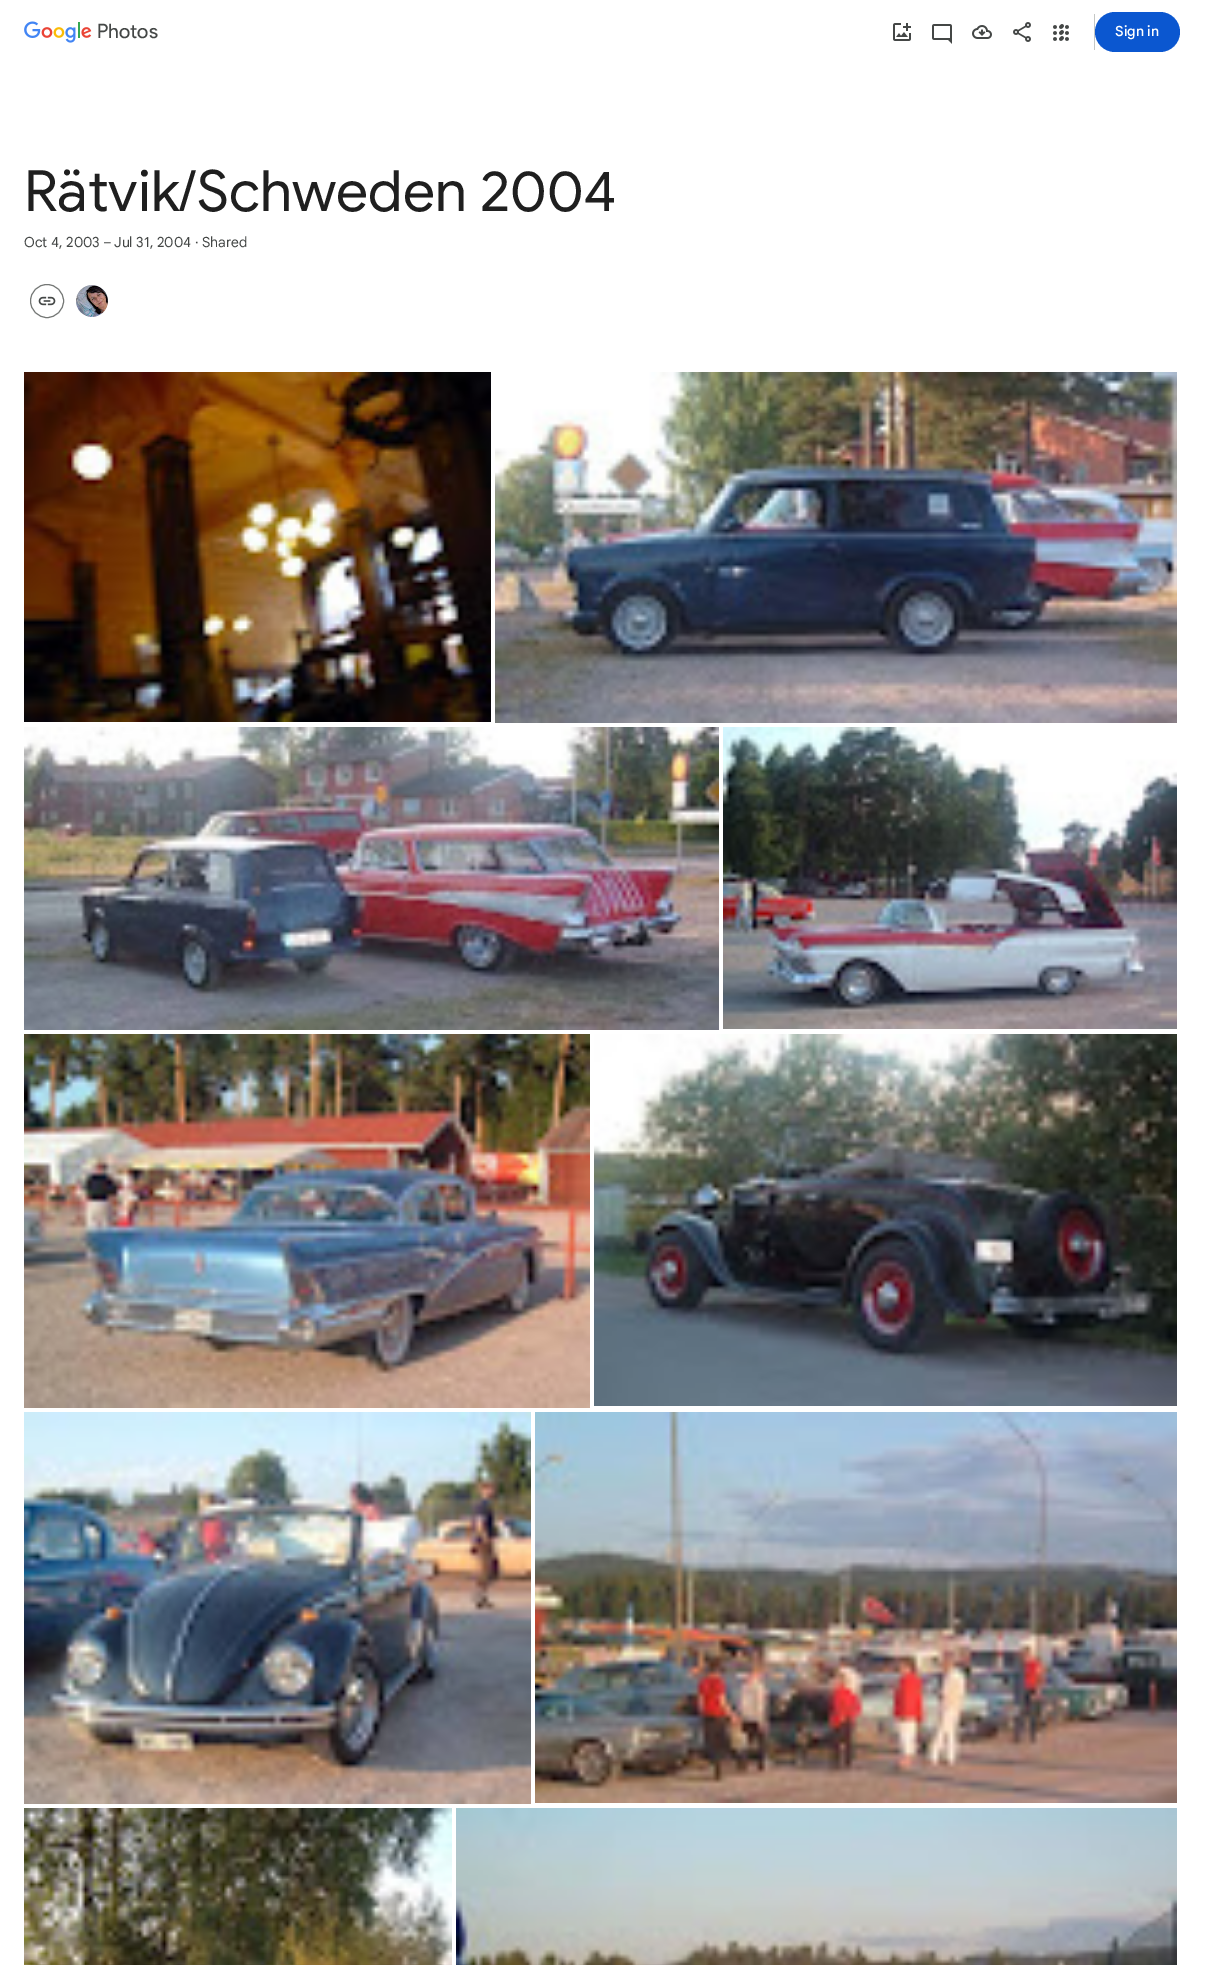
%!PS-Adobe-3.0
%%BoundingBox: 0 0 1216 1965
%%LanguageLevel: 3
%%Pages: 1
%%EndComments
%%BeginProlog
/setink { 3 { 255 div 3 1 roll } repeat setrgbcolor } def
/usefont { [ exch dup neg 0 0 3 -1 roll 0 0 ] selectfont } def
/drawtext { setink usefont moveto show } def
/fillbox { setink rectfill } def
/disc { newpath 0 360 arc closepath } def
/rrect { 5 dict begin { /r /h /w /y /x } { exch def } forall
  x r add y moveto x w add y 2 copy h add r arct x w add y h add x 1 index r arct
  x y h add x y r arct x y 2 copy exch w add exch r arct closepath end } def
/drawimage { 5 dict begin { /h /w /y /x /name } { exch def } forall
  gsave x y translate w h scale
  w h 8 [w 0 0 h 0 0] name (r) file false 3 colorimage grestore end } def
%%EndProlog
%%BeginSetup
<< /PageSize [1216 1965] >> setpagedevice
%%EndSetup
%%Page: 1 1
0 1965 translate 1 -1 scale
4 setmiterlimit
0 0 1216 1965 255 255 255 fillbox
(assets/img1.rgb) 24 21 68 22 drawimage
(Photos) 97 38 /ProductSans-Regular 20 68 71 70 drawtext
(assets/img2.rgb) 893 23 18 18 drawimage
(assets/img3.rgb) 932 24 20 20 drawimage
(assets/img4.rgb) 972 25 20 14 drawimage
(assets/img5.rgb) 1013 22 18 20 drawimage
(assets/img6.rgb) 1060 24 4 16 drawimage
1094 14 1 36 196 199 197 fillbox
(Rätvik/Schweden 2004) 24 211 /GoogleSans-Regular 57 31 31 31 drawtext
(Oct 4, 2003 – Jul 31, 2004 · Shared) 24 247 /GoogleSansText-Regular 14 68 71 70 drawtext
116 119 117 setink
47 301 16.5 disc stroke
(assets/img7.rgb) 38 296 18 10 drawimage
(assets/img8.rgb) 76 285 32 32 drawimage
(assets/img9.rgb) 24 372 467 350 drawimage
(assets/img10.rgb) 495 372 682 351 drawimage
(assets/img11.rgb) 24 727 695 303 drawimage
(assets/img12.rgb) 723 727 454 302 drawimage
(assets/img13.rgb) 24 1034 566 374 drawimage
(assets/img14.rgb) 594 1034 583 372 drawimage
(assets/img15.rgb) 24 1412 507 392 drawimage
(assets/img16.rgb) 535 1412 642 391 drawimage
(assets/img17.rgb) 24 1808 428 157 drawimage
(assets/img18.rgb) 456 1808 721 157 drawimage
(assets/img19.rgb) 1053 25 16 16 drawimage
11 87 208 setink
1095 12 85 40 20 rrect fill
(Sign in) 1115 36 /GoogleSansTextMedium-Medium 14 255 255 255 drawtext
showpage
%%EOF
